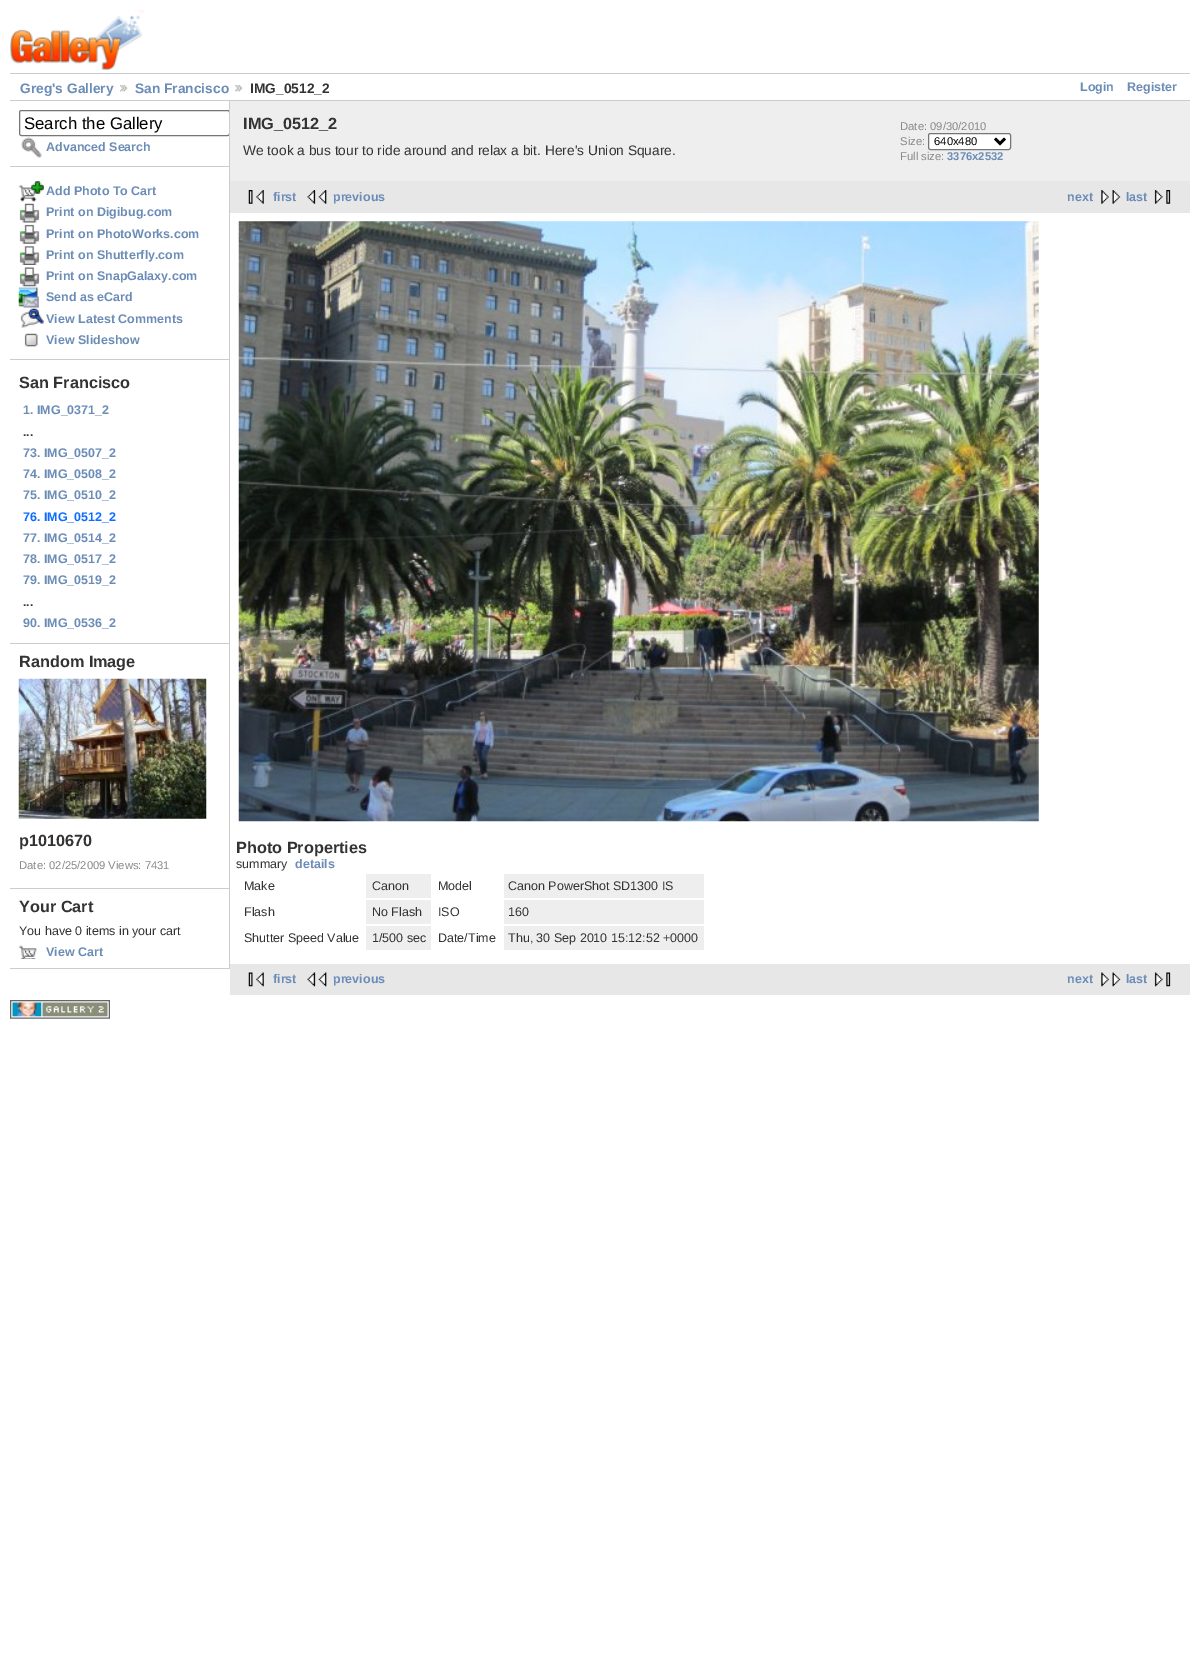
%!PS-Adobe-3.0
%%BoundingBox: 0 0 1200 1667
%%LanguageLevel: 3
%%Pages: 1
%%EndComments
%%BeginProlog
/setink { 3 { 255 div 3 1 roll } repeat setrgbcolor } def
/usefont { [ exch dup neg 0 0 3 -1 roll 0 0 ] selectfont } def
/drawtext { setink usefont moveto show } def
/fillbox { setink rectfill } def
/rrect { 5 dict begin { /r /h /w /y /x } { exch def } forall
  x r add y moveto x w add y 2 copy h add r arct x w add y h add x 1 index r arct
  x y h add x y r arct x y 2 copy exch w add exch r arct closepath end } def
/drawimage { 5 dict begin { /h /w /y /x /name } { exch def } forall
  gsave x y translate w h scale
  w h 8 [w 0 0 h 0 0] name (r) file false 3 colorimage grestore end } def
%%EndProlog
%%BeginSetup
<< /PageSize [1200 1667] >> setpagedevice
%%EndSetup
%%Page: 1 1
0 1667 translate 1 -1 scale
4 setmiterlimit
0 0 1200 1667 255 255 255 fillbox
(assets/img1.rgb) 10 10 134 60 drawimage
10 73 1180 1 204 204 204 fillbox
10 100 1180 1 204 204 204 fillbox
(Greg's Gallery) 20 93 /LiberationSans-Bold 13.75 107 140 183 drawtext
(assets/img2.rgb) 120 84 8 8 drawimage
(San Francisco) 135 93 /LiberationSans-Bold 13.75 107 140 183 drawtext
(assets/img2.rgb) 235 84 8 8 drawimage
(IMG_0512_2) 250 93 /LiberationSans-Bold 13.75 51 51 51 drawtext
(Login) 1080 91 /LiberationSans-Bold 12.5 107 140 183 drawtext
(Register) 1127 91 /LiberationSans-Bold 12.5 107 140 183 drawtext
229 101 1 868 204 204 204 fillbox
10 166 219 1 204 204 204 fillbox
gsave
10 101 219 868 rectclip
118 118 118 setink
19.5 110.5 210 25 2 rrect stroke
grestore
(Search the Gallery) 24 129 /LiberationSans-Regular 16.75 0 0 0 drawtext
(assets/img3.rgb) 21 137 21 21 drawimage
(Advanced Search) 46 151 /LiberationSans-Bold 12.5 107 140 183 drawtext
10 359 219 1 204 204 204 fillbox
(assets/img4.rgb) 18 181 26 21 drawimage
(Add Photo To Cart) 46 195 /LiberationSans-Bold 12.5 107 140 183 drawtext
(assets/img5.rgb) 19 203 21 20 drawimage
(Print on Digibug.com) 46 216 /LiberationSans-Bold 12.5 107 140 183 drawtext
(assets/img6.rgb) 19 224 21 20 drawimage
(Print on PhotoWorks.com) 46 238 /LiberationSans-Bold 12.5 107 140 183 drawtext
(assets/img7.rgb) 19 246 21 19 drawimage
(Print on Shutterfly.com) 46 259 /LiberationSans-Bold 12.5 107 140 183 drawtext
(assets/img8.rgb) 19 267 21 20 drawimage
(Print on SnapGalaxy.com) 46 280 /LiberationSans-Bold 12.5 107 140 183 drawtext
(assets/img9.rgb) 18 287 21 21 drawimage
(Send as eCard) 46 301 /LiberationSans-Bold 12.5 107 140 183 drawtext
(assets/img10.rgb) 20 308 24 20 drawimage
(View Latest Comments) 46 323 /LiberationSans-Bold 12.5 107 140 183 drawtext
(assets/img11.rgb) 24 333 14 14 drawimage
(View Slideshow) 46 344 /LiberationSans-Bold 12.5 107 140 183 drawtext
10 643 219 1 204 204 204 fillbox
(San Francisco) 19 388 /LiberationSans-Bold 16.25 51 51 51 drawtext
(1. IMG_0371_2) 23 414 /LiberationSans-Bold 12.5 107 140 183 drawtext
(...) 23 436 /LiberationSans-Bold 12.5 51 51 51 drawtext
(73. IMG_0507_2) 23 457 /LiberationSans-Bold 12.5 107 140 183 drawtext
(74. IMG_0508_2) 23 478 /LiberationSans-Bold 12.5 107 140 183 drawtext
(75. IMG_0510_2) 23 499 /LiberationSans-Bold 12.5 107 140 183 drawtext
(76. IMG_0512_2) 23 521 /LiberationSans-Bold 12.5 11 108 255 drawtext
(77. IMG_0514_2) 23 542 /LiberationSans-Bold 12.5 107 140 183 drawtext
(78. IMG_0517_2) 23 563 /LiberationSans-Bold 12.5 107 140 183 drawtext
(79. IMG_0519_2) 23 584 /LiberationSans-Bold 12.5 107 140 183 drawtext
(...) 23 606 /LiberationSans-Bold 12.5 51 51 51 drawtext
(90. IMG_0536_2) 23 627 /LiberationSans-Bold 12.5 107 140 183 drawtext
10 888 219 1 204 204 204 fillbox
(Random Image) 19 667 /LiberationSans-Bold 16.25 51 51 51 drawtext
(assets/img12.rgb) 18 678 189 141 drawimage
(p1010670) 19 846 /LiberationSans-Bold 16.25 51 51 51 drawtext
(Date: 02/25/2009 Views: 7431) 19 869 /LiberationSans-Regular 11.25 136 136 136 drawtext
10 968 219 1 204 204 204 fillbox
(Your Cart) 19 912 /LiberationSans-Bold 16.25 51 51 51 drawtext
(You have 0 items in your cart) 19 935 /LiberationSans-Regular 12.5 51 51 51 drawtext
(assets/img13.rgb) 18 945 19 14 drawimage
(View Cart) 46 956 /LiberationSans-Bold 12.5 107 140 183 drawtext
230 101 960 80 238 238 238 fillbox
(IMG_0512_2) 243 129 /LiberationSans-Bold 16.25 51 51 51 drawtext
(We took a bus tour to ride around and relax a bit. Here's Union Square.) 243 155 /LiberationSans-Regular 13.75 51 51 51 drawtext
(Date: 09/30/2010) 900 130 /LiberationSans-Regular 11.25 136 136 136 drawtext
(Size:) 900 145 /LiberationSans-Regular 11.25 136 136 136 drawtext
255 255 255 setink
928.5 133.5 82 16 2 rrect gsave fill grestore
118 118 118 setink
stroke
0 0 0 setink
2.5 setlinewidth
995 138.5 moveto 1000 143.5 lineto 1005 138.5 lineto stroke
(640x480) 934 145 /LiberationSans-Regular 11.25 0 0 0 drawtext
(Full size:) 900 160 /LiberationSans-Regular 11.25 136 136 136 drawtext
(3376x2532) 947 160 /LiberationSans-Bold 11.25 107 140 183 drawtext
230 181 960 32 231 231 231 fillbox
(assets/img14.rgb) 248 190 16 14 drawimage
(first) 273 201 /LiberationSans-Bold 12.5 107 140 183 drawtext
(assets/img15.rgb) 307 190 20 14 drawimage
(previous) 333 201 /LiberationSans-Bold 12.5 107 140 183 drawtext
(next) 1067 201 /LiberationSans-Bold 12.5 107 140 183 drawtext
(assets/img16.rgb) 1101 190 20 14 drawimage
(last) 1126 201 /LiberationSans-Bold 12.5 107 140 183 drawtext
(assets/img17.rgb) 1154 190 17 14 drawimage
(assets/img18.rgb) 238 221 801 601 drawimage
(Photo Properties) 236 853 /LiberationSans-Bold 16.25 51 51 51 drawtext
(summary) 236 868 /LiberationSans-Regular 12.5 51 51 51 drawtext
(details) 295 868 /LiberationSans-Bold 12.5 107 140 183 drawtext
(Make) 244 890 /LiberationSans-Regular 12.5 51 51 51 drawtext
366 874 65 24 238 238 238 fillbox
(Canon) 372 890 /LiberationSans-Regular 12.5 51 51 51 drawtext
(Model) 438 890 /LiberationSans-Regular 12.5 51 51 51 drawtext
504 874 200 24 238 238 238 fillbox
(Canon PowerShot SD1300 IS) 508 890 /LiberationSans-Regular 12.5 51 51 51 drawtext
(Flash) 244 916 /LiberationSans-Regular 12.5 51 51 51 drawtext
366 900 65 24 238 238 238 fillbox
(No Flash) 372 916 /LiberationSans-Regular 12.5 51 51 51 drawtext
(ISO) 438 916 /LiberationSans-Regular 12.5 51 51 51 drawtext
504 900 200 24 238 238 238 fillbox
(160) 508 916 /LiberationSans-Regular 12.5 51 51 51 drawtext
(Shutter Speed Value) 244 942 /LiberationSans-Regular 12.5 51 51 51 drawtext
366 926 65 24 238 238 238 fillbox
(1/500 sec) 372 942 /LiberationSans-Regular 12.5 51 51 51 drawtext
(Date/Time) 438 942 /LiberationSans-Regular 12.5 51 51 51 drawtext
504 926 200 24 238 238 238 fillbox
(Thu, 30 Sep 2010 15:12:52 +0000) 508 942 /LiberationSans-Regular 12.5 51 51 51 drawtext
230 964 960 31 231 231 231 fillbox
(assets/img19.rgb) 248 972 16 15 drawimage
(first) 273 983 /LiberationSans-Bold 12.5 107 140 183 drawtext
(assets/img20.rgb) 307 972 20 15 drawimage
(previous) 333 983 /LiberationSans-Bold 12.5 107 140 183 drawtext
(next) 1067 983 /LiberationSans-Bold 12.5 107 140 183 drawtext
(assets/img21.rgb) 1101 972 20 15 drawimage
(last) 1126 983 /LiberationSans-Bold 12.5 107 140 183 drawtext
(assets/img22.rgb) 1154 972 17 15 drawimage
(assets/img23.rgb) 10 1000 100 19 drawimage
showpage
%%EOF
